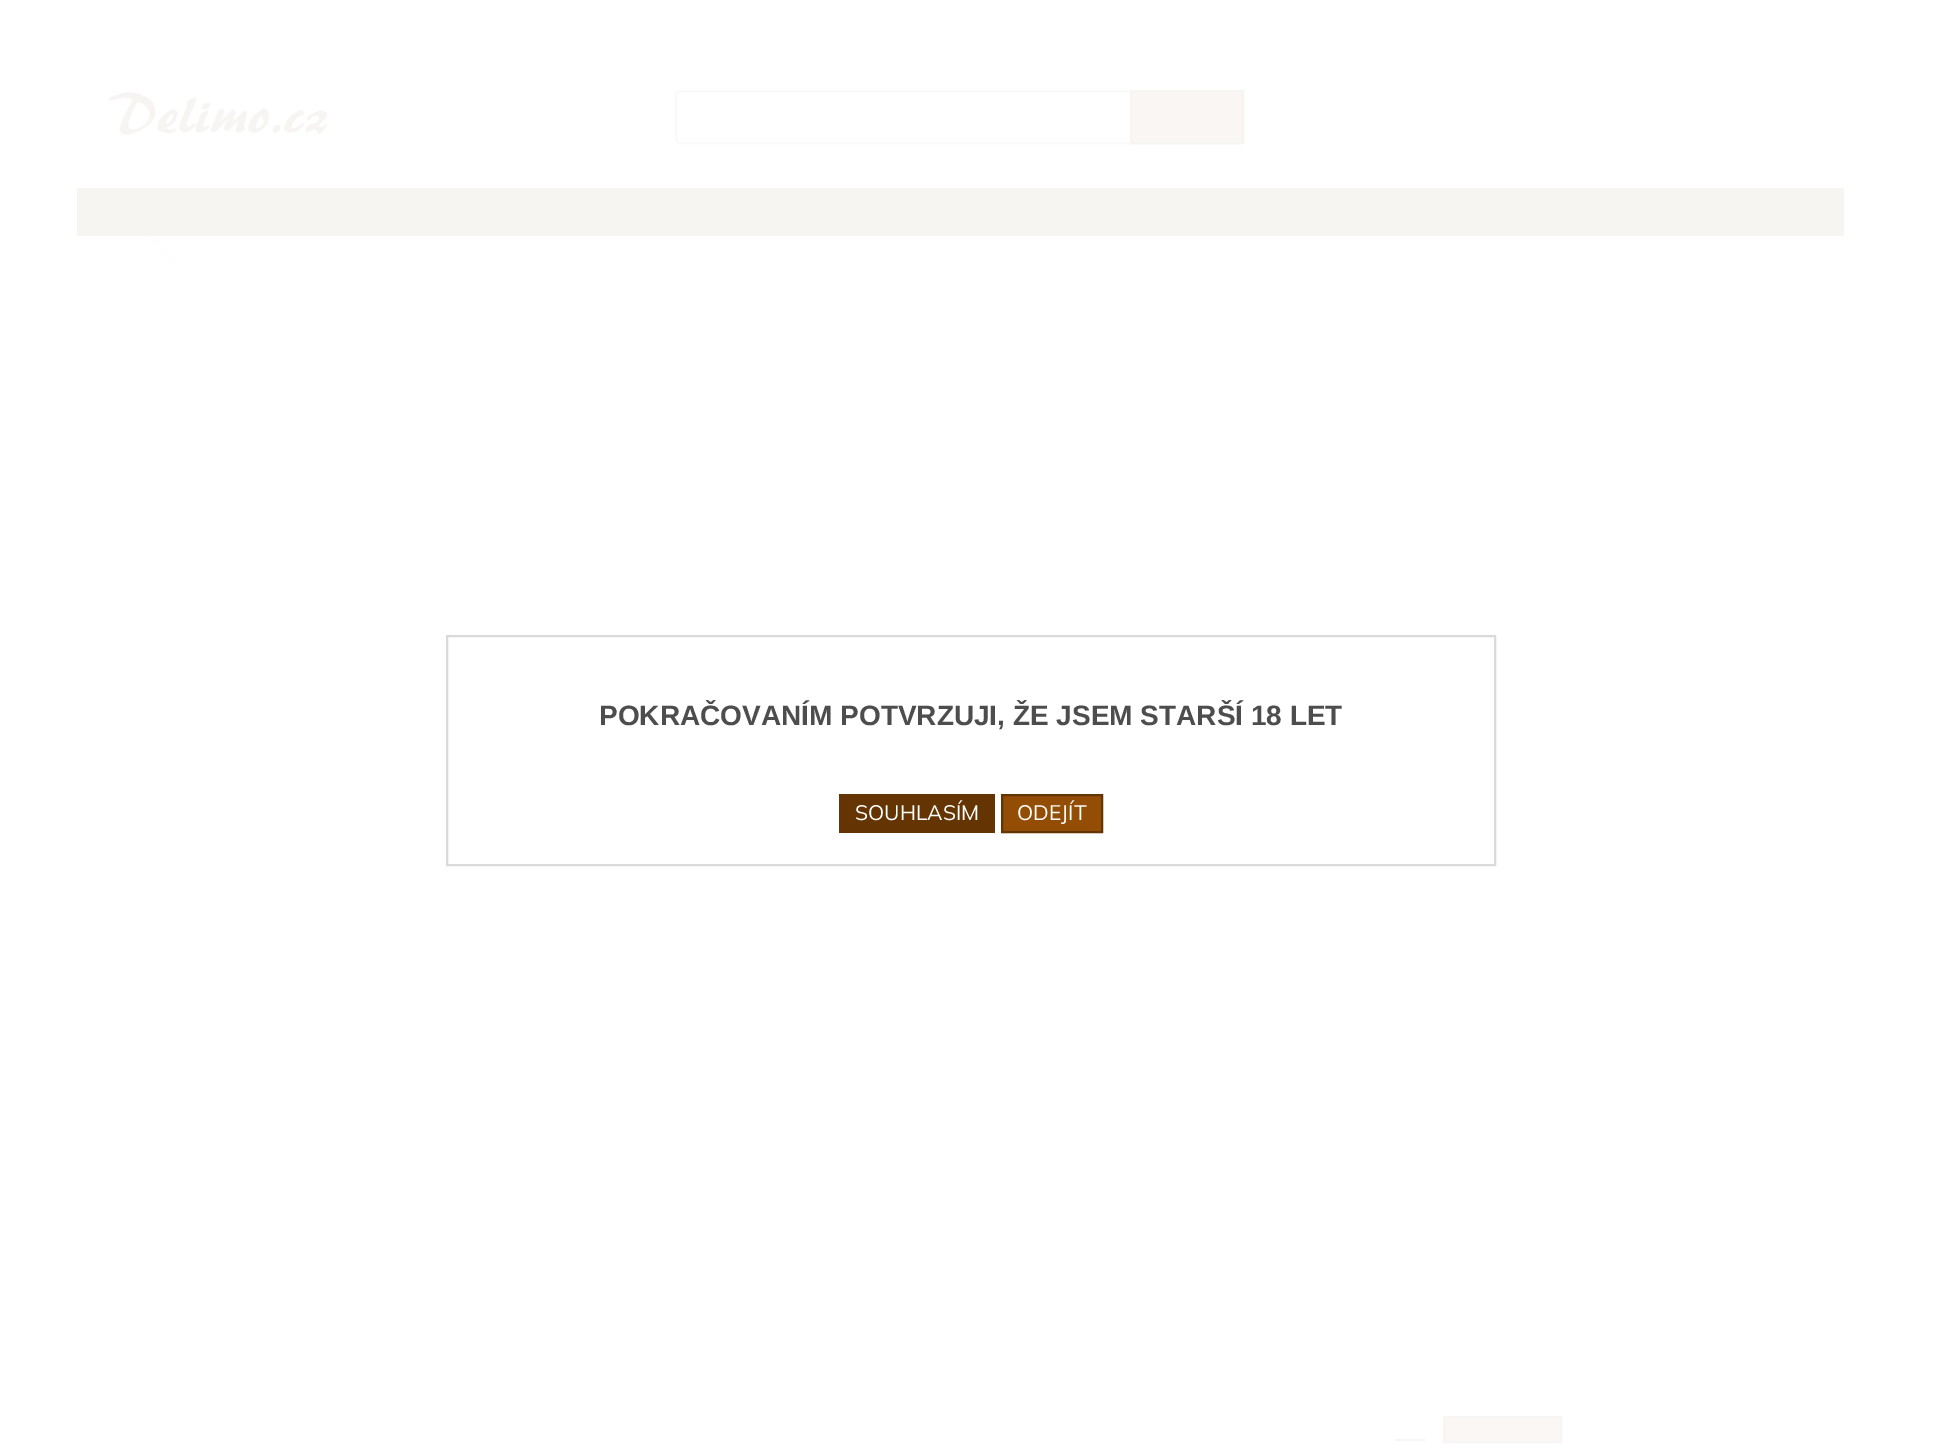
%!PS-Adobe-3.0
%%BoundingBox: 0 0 1941 1451
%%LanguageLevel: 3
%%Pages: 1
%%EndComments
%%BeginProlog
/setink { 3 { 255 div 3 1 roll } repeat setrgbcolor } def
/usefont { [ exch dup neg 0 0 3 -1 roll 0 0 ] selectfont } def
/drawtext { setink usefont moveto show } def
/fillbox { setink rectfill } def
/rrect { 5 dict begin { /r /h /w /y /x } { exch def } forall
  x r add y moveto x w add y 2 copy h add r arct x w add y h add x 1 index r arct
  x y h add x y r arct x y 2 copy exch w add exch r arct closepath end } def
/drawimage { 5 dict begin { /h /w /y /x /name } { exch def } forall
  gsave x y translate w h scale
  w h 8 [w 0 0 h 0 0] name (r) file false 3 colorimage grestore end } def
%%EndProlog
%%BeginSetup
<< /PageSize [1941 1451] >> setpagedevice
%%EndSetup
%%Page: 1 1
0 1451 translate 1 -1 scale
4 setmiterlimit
0 0 1941 1451 255 255 255 fillbox
(assets/img1.rgb) 106 91 224 48 drawimage
250 250 250 setink
2 setlinewidth
676 91 567 52 4 rrect stroke
250 246 243 setink
1131 91 moveto 1243 91 lineto 1243 143 lineto 1131 143 lineto closepath gsave fill grestore
247 245 242 setink
stroke
77 188 1767 48 247 245 242 fillbox
253 253 253 setink
149.5 236 moveto 150.5 235 lineto 180.5 265.5 lineto 179.5 266.5 lineto closepath fill
218 218 218 setink
447 636 1048 229 rectstroke
(POKRAČOVANÍM POTVRZUJI, ŽE JSEM STARŠÍ 18 LET) 599 725 /LiberationSans-Bold 28 77 77 77 drawtext
839 794 156 39 100 52 3 fillbox
(SOUHLASÍM) 855 820 /Mulish-Regular 21 255 255 255 drawtext
148 77 5 setink
1002 795 moveto 1102 795 lineto 1102 832 lineto 1002 832 lineto closepath gsave fill grestore
100 52 3 setink
stroke
(ODEJÍT) 1017 820 /Mulish-Regular 21 255 255 255 drawtext
1395 1439 30 2 248 246 244 fillbox
250 247 244 setink
1444 1417 moveto 1561 1417 lineto 1561 1442 lineto 1444 1442 lineto closepath gsave fill grestore
248 246 244 setink
stroke
showpage
%%EOF
